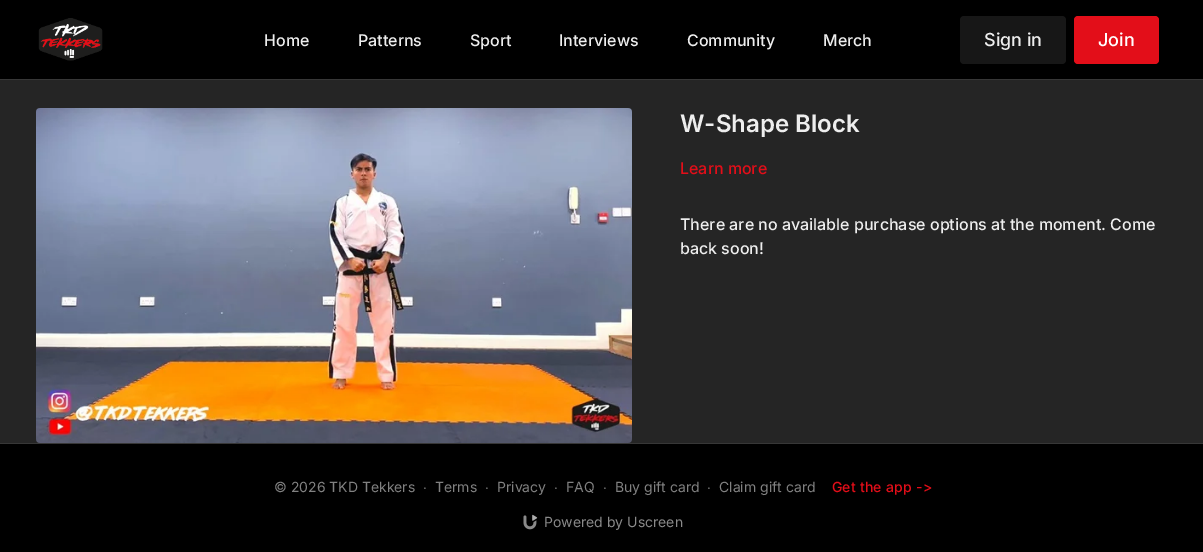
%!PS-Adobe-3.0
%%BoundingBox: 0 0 1203 552
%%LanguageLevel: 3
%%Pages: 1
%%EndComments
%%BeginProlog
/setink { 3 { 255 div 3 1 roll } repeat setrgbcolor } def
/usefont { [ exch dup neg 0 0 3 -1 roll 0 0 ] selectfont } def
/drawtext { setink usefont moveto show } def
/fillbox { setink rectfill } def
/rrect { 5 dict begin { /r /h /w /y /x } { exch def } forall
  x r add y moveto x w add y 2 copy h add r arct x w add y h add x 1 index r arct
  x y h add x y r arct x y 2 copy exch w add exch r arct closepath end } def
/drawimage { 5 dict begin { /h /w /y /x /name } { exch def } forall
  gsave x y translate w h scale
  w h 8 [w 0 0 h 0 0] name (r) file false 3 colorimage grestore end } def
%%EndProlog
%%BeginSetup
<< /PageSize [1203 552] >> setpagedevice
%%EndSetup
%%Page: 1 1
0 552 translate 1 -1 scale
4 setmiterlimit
0 0 1203 552 37 37 37 fillbox
0 0 1203 79 0 0 0 fillbox
0 79 1203 1 55 55 55 fillbox
(assets/img1.rgb) 38 18 65 43 drawimage
(Home) 264 46 /Inter-Medium 16 238 238 238 drawtext
(Patterns) 358 46 /Inter-Medium 16 238 238 238 drawtext
(Sport) 470 46 /Inter-Medium 16 238 238 238 drawtext
(Interviews) 559 46 /Inter-Medium 16 238 238 238 drawtext
(Community) 687 46 /Inter-Medium 16 238 238 238 drawtext
(Merch) 823 46 /Inter-Medium 16 238 238 238 drawtext
23 23 23 setink
960 16 106 48 4 rrect fill
(Sign in) 984 46 /Inter-Medium 18 238 238 238 drawtext
227 14 25 setink
1074 16 85 48 4 rrect fill
(Join) 1098 46 /Inter-Medium 18 255 255 255 drawtext
(assets/img2.rgb) 36 108 596 335 drawimage
(W-Shape Block) 680 132 /Inter-SemiBold 24 238 238 238 drawtext
(Learn more) 680 174 /Inter-Medium 16 227 14 25 drawtext
(There are no available purchase options at the moment. Come) 680 230 /Inter-Medium 16 238 238 238 drawtext
(back soon!) 680 254 /Inter-Medium 16 238 238 238 drawtext
0 444 1203 108 0 0 0 fillbox
0 443 1203 1 55 55 55 fillbox
(© 2026 TKD Tekkers) 274 492 /Inter-Regular 14 129 129 129 drawtext
(∙) 423 492 /LiberationSans-Regular 14 129 129 129 drawtext
(Terms) 435 492 /Inter-Regular 14 129 129 129 drawtext
(∙) 485 492 /LiberationSans-Regular 14 129 129 129 drawtext
(Privacy) 497 492 /Inter-Regular 14 129 129 129 drawtext
(∙) 554 492 /LiberationSans-Regular 14 129 129 129 drawtext
(FAQ) 566 492 /Inter-Regular 14 129 129 129 drawtext
(∙) 603 492 /LiberationSans-Regular 14 129 129 129 drawtext
(Buy gift card) 615 492 /Inter-Regular 14 129 129 129 drawtext
(∙) 707 492 /LiberationSans-Regular 14 129 129 129 drawtext
(Claim gift card) 719 492 /Inter-Regular 14 129 129 129 drawtext
/Inter-Medium 14 usefont
227 14 25 setink
832 492 moveto 1 0 32 (Get the app ->) widthshow
(assets/img3.rgb) 523 514 15 16 drawimage
(Powered by Uscreen) 544 527 /Inter-Regular 14 138 138 138 drawtext
showpage
%%EOF
